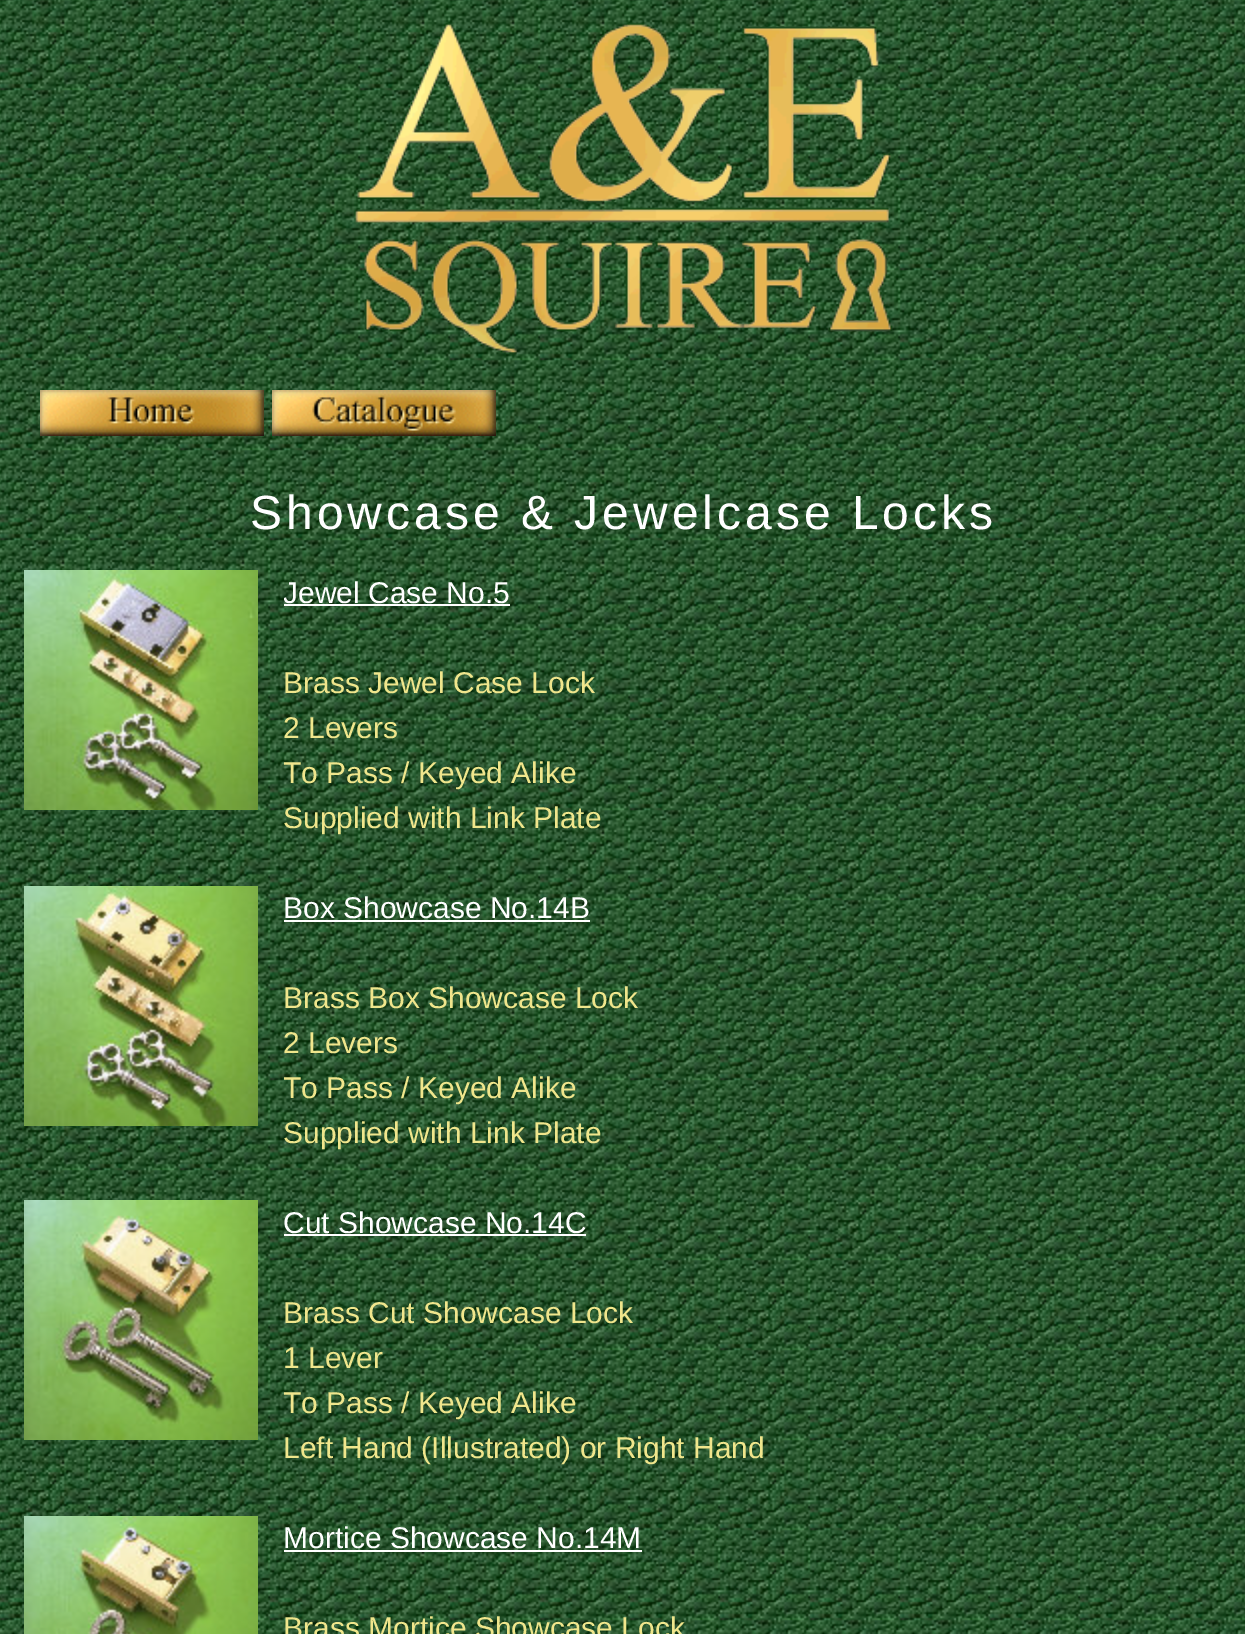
%!PS-Adobe-3.0
%%BoundingBox: 0 0 1245 1634
%%LanguageLevel: 3
%%Pages: 1
%%EndComments
%%BeginProlog
/setink { 3 { 255 div 3 1 roll } repeat setrgbcolor } def
/usefont { [ exch dup neg 0 0 3 -1 roll 0 0 ] selectfont } def
/drawtext { setink usefont moveto show } def
/fillbox { setink rectfill } def
/drawimage { 5 dict begin { /h /w /y /x /name } { exch def } forall
  gsave x y translate w h scale
  w h 8 [w 0 0 h 0 0] name (r) file false 3 colorimage grestore end } def
%%EndProlog
%%BeginSetup
<< /PageSize [1245 1634] >> setpagedevice
%%EndSetup
%%Page: 1 1
0 1634 translate 1 -1 scale
4 setmiterlimit
0 0 1245 1634 255 255 255 fillbox
(assets/img1.rgb) 0 0 1245 1634 drawimage
(assets/img2.rgb) 355 22 538 333 drawimage
(assets/img3.rgb) 40 390 224 46 drawimage
(assets/img4.rgb) 272 390 224 46 drawimage
/LiberationSans-Regular 48 usefont
250 529 moveto 4 0 (Showcase & Jewelcase Locks) ashow
(assets/img5.rgb) 24 570 234 240 drawimage
gsave
284 570 940 270 rectclip
(Jewel Case No.5) 283 603 /LiberationSans-Regular 30 255 255 255 drawtext
grestore
284 604 226 2 255 255 255 fillbox
(Brass Jewel Case Lock) 283 693 /LiberationSans-Regular 30 240 230 140 drawtext
(2 Levers) 283 738 /LiberationSans-Regular 30 240 230 140 drawtext
gsave
284 570 940 270 rectclip
(To Pass / Keyed Alike) 283 783 /LiberationSans-Regular 30 240 230 140 drawtext
grestore
(Supplied with Link Plate) 283 828 /LiberationSans-Regular 30 240 230 140 drawtext
(assets/img6.rgb) 24 886 234 240 drawimage
(Box Showcase No.14B) 283 918 /LiberationSans-Regular 30 255 255 255 drawtext
284 920 306 2 255 255 255 fillbox
(Brass Box Showcase Lock) 283 1008 /LiberationSans-Regular 30 240 230 140 drawtext
(2 Levers) 283 1053 /LiberationSans-Regular 30 240 230 140 drawtext
gsave
284 886 940 270 rectclip
(To Pass / Keyed Alike) 283 1098 /LiberationSans-Regular 30 240 230 140 drawtext
grestore
(Supplied with Link Plate) 283 1143 /LiberationSans-Regular 30 240 230 140 drawtext
(assets/img7.rgb) 24 1200 234 240 drawimage
(Cut Showcase No.14C) 283 1233 /LiberationSans-Regular 30 255 255 255 drawtext
284 1234 302 2 255 255 255 fillbox
(Brass Cut Showcase Lock) 283 1323 /LiberationSans-Regular 30 240 230 140 drawtext
(1 Lever) 283 1368 /LiberationSans-Regular 30 240 230 140 drawtext
gsave
284 1200 940 270 rectclip
(To Pass / Keyed Alike) 283 1413 /LiberationSans-Regular 30 240 230 140 drawtext
grestore
(Left Hand \(Illustrated\) or Right Hand) 283 1458 /LiberationSans-Regular 30 240 230 140 drawtext
(assets/img8.rgb) 24 1516 234 118 drawimage
(Mortice Showcase No.14M) 283 1548 /LiberationSans-Regular 30 255 255 255 drawtext
284 1550 358 2 255 255 255 fillbox
(Brass Mortice Showcase Lock) 283 1638 /LiberationSans-Regular 30 240 230 140 drawtext
showpage
%%EOF
